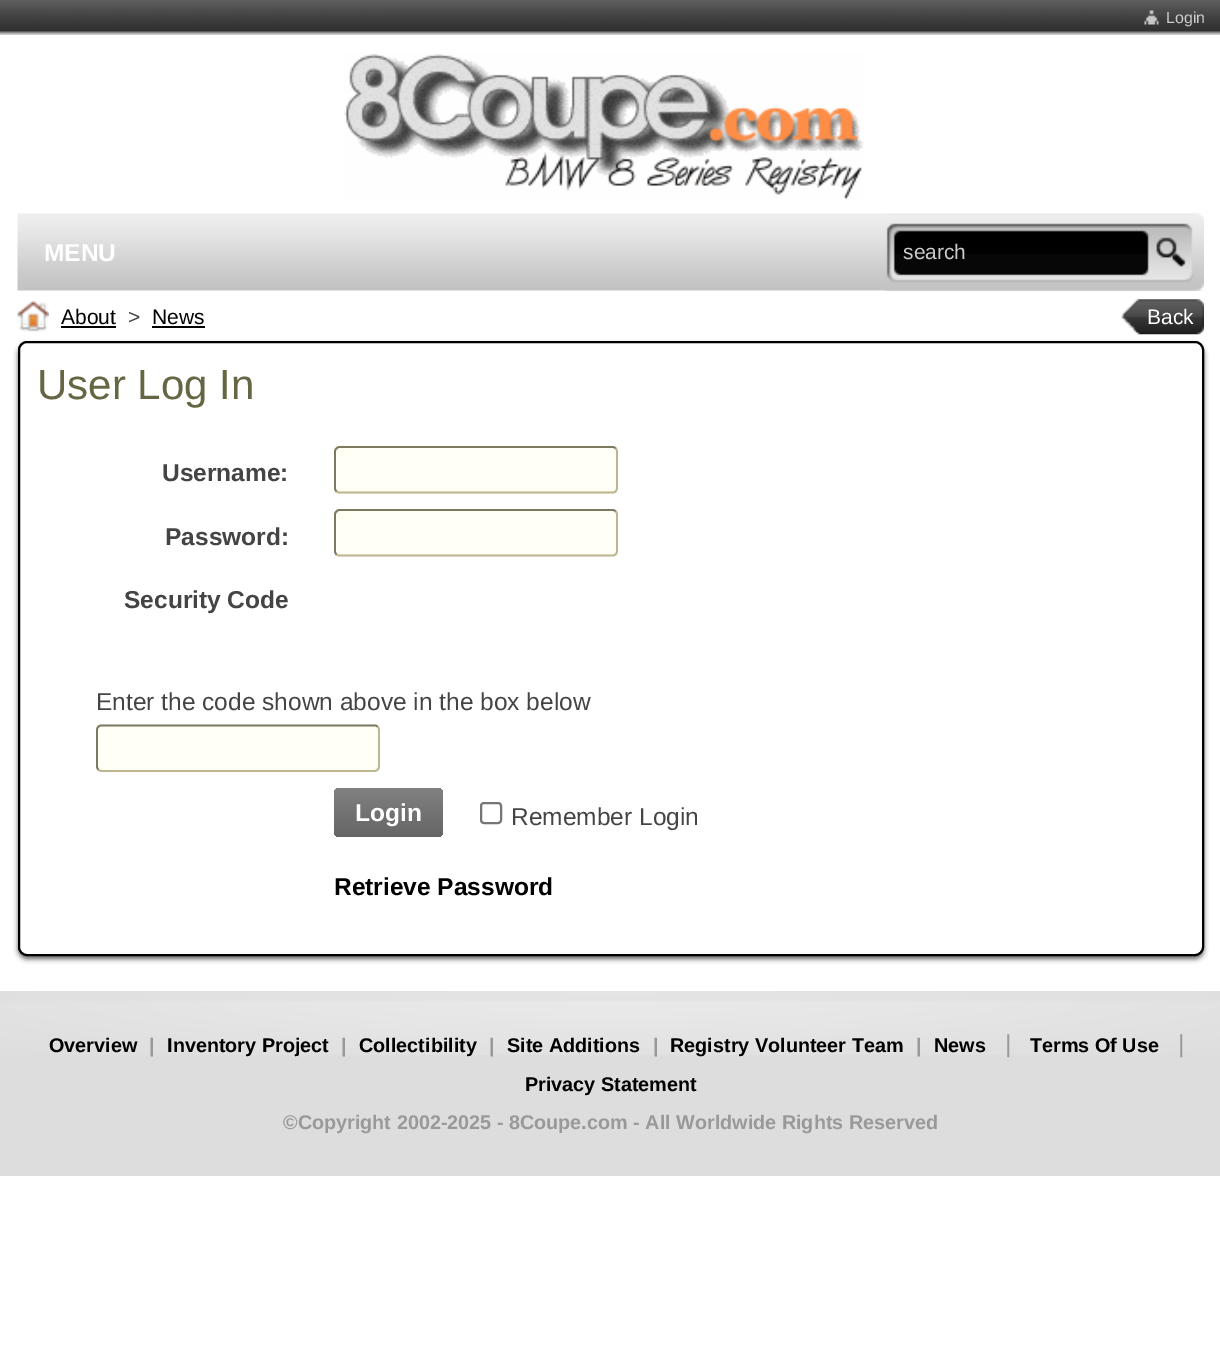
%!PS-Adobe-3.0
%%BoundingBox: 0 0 1220 1358
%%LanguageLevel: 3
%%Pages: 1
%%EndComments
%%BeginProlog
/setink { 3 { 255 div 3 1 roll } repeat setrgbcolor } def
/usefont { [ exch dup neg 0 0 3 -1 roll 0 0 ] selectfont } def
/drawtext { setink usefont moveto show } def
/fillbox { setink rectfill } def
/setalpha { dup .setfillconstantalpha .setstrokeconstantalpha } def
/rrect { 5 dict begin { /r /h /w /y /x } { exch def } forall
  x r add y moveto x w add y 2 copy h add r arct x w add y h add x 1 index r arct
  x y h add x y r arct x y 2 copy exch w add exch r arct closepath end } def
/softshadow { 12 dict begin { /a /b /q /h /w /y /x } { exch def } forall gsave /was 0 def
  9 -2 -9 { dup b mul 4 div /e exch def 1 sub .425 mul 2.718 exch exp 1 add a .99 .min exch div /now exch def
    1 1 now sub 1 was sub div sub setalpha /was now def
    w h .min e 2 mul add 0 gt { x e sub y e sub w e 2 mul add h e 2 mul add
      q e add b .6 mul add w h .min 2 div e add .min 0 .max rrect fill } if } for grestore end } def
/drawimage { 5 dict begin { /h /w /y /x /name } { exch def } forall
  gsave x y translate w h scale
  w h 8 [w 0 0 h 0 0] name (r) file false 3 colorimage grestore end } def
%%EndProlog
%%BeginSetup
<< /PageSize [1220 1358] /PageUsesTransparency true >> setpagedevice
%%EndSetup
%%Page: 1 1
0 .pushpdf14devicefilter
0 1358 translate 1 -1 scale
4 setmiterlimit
0 0 1220 1358 255 255 255 fillbox
(assets/img1.rgb) 0 0 1220 35 drawimage
(assets/img2.rgb) 1144 10 15 15 drawimage
(Login) 1166 23 /LiberationSans-Regular 16 204 204 204 drawtext
(assets/img3.rgb) 344 53 520 147 drawimage
(assets/img4.rgb) 17 213 1187 78 drawimage
(MENU) 44 261 /LiberationSans-Bold 24.5 255 255 255 drawtext
(assets/img5.rgb) 885 213 319 78 drawimage
(search) 903 259 /LiberationSans-Regular 21 204 204 204 drawtext
(assets/img6.rgb) 1156 237 30 30 drawimage
(assets/img7.rgb) 17 301 32 31 drawimage
(About) 61 324 /LiberationSans-Regular 21 0 0 0 drawtext
61 326 55 2 0 0 0 fillbox
(>) 128 324 /LiberationSans-Regular 21 68 68 68 drawtext
(News) 152 324 /LiberationSans-Regular 21 0 0 0 drawtext
152 326 53 2 0 0 0 fillbox
(assets/img8.rgb) 1121 299 83 36 drawimage
(Back) 1147 324 /LiberationSans-Regular 21 255 255 255 drawtext
gsave
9 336 moveto 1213 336 lineto 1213 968 lineto 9 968 lineto closepath 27 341 moveto 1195 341 lineto 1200 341 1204 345 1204 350 curveto 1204 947 lineto 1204 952 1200 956 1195 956 curveto 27 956 lineto 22 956 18 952 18 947 curveto 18 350 lineto 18 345 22 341 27 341 curveto closepath eoclip newpath
102 102 102 setink
18 345 1186 614 9 2.5 1 softshadow
grestore
0 0 0 setink
2 setlinewidth
19 342 1184 613 8 rrect stroke
(User Log In) 37 399 /LiberationSans-Regular 42 102 102 68 drawtext
(Username:) 162 481 /LiberationSans-Bold 24.5 68 68 68 drawtext
255 255 245 setink
334 446 284 48 5 rrect fill
188 182 145 setink
1.8 setlinewidth
615.5 448.5 moveto 616.5 449 617 450.5 617 451.5 curveto 617 488 lineto 617 489.5 616.5 490.5 615.5 491.5 curveto 615 492 613.5 492.5 612.5 492.5 curveto 339.5 492.5 lineto 338.5 492.5 337 492 336.5 491.5 curveto stroke
125 121 97 setink
336.5 491.5 moveto 335.5 490.5 335 489.5 335 488 curveto 335 451.5 lineto 335 450.5 335.5 449 336.5 448.5 curveto 337 447.5 338.5 447 339.5 447 curveto 612.5 447 lineto 613.5 447 615 447.5 615.5 448.5 curveto stroke
(Password:) 165 545 /LiberationSans-Bold 24.5 68 68 68 drawtext
255 255 245 setink
334 509 284 48 5 rrect fill
188 182 145 setink
615.5 511.5 moveto 616.5 512 617 513.5 617 514.5 curveto 617 551 lineto 617 552.5 616.5 553.5 615.5 554.5 curveto 615 555 613.5 555.5 612.5 555.5 curveto 339.5 555.5 lineto 338.5 555.5 337 555 336.5 554.5 curveto stroke
125 121 97 setink
336.5 554.5 moveto 335.5 553.5 335 552.5 335 551 curveto 335 514.5 lineto 335 513.5 335.5 512 336.5 511.5 curveto 337 510.5 338.5 510 339.5 510 curveto 612.5 510 lineto 613.5 510 615 510.5 615.5 511.5 curveto stroke
(Security Code) 124 608 /LiberationSans-Bold 24.5 68 68 68 drawtext
(Enter the code shown above in the box below) 96 710 /LiberationSans-Regular 24.5 68 68 68 drawtext
255 255 245 setink
96 725 284 47 5 rrect fill
188 182 145 setink
377.5 726.5 moveto 378.5 727.5 379 728.5 379 730 curveto 379 766.5 lineto 379 767.5 378.5 769 377.5 769.5 curveto 377 770.5 375.5 771 374.5 771 curveto 101.5 771 lineto 100.5 771 99 770.5 98.5 769.5 curveto stroke
125 121 97 setink
98.5 769.5 moveto 97.5 769 97 767.5 97 766.5 curveto 97 730 lineto 97 728.5 97.5 727.5 98.5 726.5 curveto 99 726 100.5 725.5 101.5 725.5 curveto 374.5 725.5 lineto 375.5 725.5 377 726 377.5 726.5 curveto stroke
gsave 334 788 109 49 5 rrect clip newpath
<< /ShadingType 2 /ColorSpace /DeviceRGB /Coords [334 788 334 837] /Extend [true true] /Function << /FunctionType 2 /Domain [0 1] /C0 [0.506 0.506 0.506] /C1 [0.396 0.396 0.396] /N 1 >> >> shfill grestore
(Login) 355 821 /LiberationSans-Bold 24.5 255 255 255 drawtext
118 118 118 setink
2 setlinewidth
481 803 20 20 3 rrect stroke
(Remember Login) 511 825 /LiberationSans-Regular 24.5 68 68 68 drawtext
(Retrieve Password) 334 895 /LiberationSans-Bold 24.5 0 0 0 drawtext
0 991 1220 185 221 221 221 fillbox
(assets/img9.rgb) 0 991 1220 64 drawimage
(Overview) 49 1052 /LiberationSans-Bold 19.8 0 0 0 drawtext
(|) 149 1052 /LiberationSans-Bold 19.8 153 153 153 drawtext
(Inventory Project) 167 1052 /LiberationSans-Bold 19.8 0 0 0 drawtext
(|) 341 1052 /LiberationSans-Bold 19.8 153 153 153 drawtext
(Collectibility) 359 1052 /LiberationSans-Bold 19.8 0 0 0 drawtext
(|) 489 1052 /LiberationSans-Bold 19.8 153 153 153 drawtext
(Site Additions) 507 1052 /LiberationSans-Bold 19.8 0 0 0 drawtext
(|) 653 1052 /LiberationSans-Bold 19.8 153 153 153 drawtext
(Registry Volunteer Team) 670 1052 /LiberationSans-Bold 19.8 0 0 0 drawtext
(|) 916 1052 /LiberationSans-Bold 19.8 153 153 153 drawtext
(News) 934 1052 /LiberationSans-Bold 19.8 0 0 0 drawtext
(|) 1005 1052 /LiberationSans-Regular 24.5 153 153 153 drawtext
(Terms Of Use) 1030 1052 /LiberationSans-Bold 19.8 0 0 0 drawtext
(|) 1178 1052 /LiberationSans-Regular 24.5 153 153 153 drawtext
(Privacy Statement) 525 1091 /LiberationSans-Bold 19.8 0 0 0 drawtext
(©Copyright 2002-2025 - 8Coupe.com - All Worldwide Rights Reserved) 283 1129 /LiberationSans-Bold 19.8 153 153 153 drawtext
.poppdf14devicefilter showpage
%%EOF
